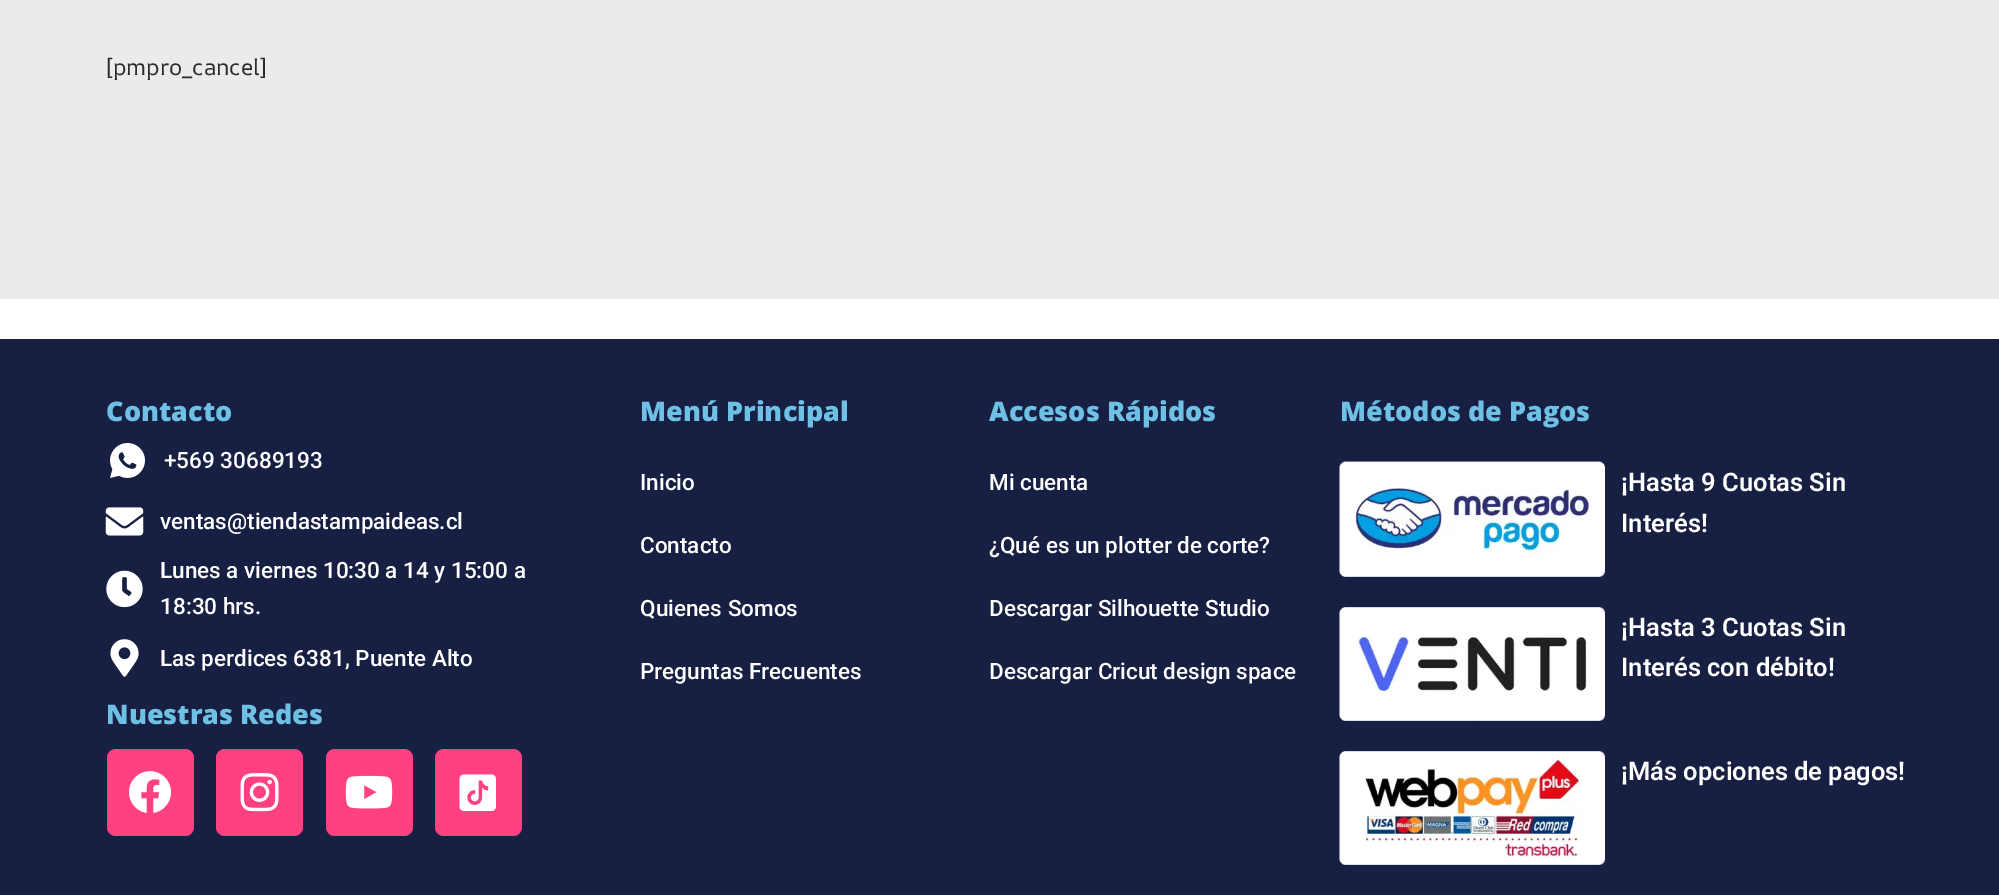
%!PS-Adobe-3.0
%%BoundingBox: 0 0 1999 895
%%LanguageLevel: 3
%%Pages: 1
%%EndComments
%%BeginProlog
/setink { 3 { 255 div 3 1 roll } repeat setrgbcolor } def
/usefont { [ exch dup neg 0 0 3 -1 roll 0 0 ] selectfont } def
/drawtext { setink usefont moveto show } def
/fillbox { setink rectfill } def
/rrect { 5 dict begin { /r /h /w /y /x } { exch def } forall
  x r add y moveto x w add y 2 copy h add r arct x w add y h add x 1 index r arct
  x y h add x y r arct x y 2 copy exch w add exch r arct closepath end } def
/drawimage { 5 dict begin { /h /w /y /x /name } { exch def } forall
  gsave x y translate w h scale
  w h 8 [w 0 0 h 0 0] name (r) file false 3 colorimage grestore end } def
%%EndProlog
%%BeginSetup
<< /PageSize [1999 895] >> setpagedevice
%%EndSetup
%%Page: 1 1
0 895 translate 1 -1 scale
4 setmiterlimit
0 0 1999 895 255 255 255 fillbox
0 0 1999 299 235 235 235 fillbox
([pmpro_cancel]) 106 75 /AROneSans-Regular 22.5 43 43 43 drawtext
0 339 1999 556 23 32 67 fillbox
(Contacto) 106 421 /OpenSans-ExtraBold 27 110 193 228 drawtext
(assets/img1.rgb) 110 443 35 35 drawimage
(+569 30689193) 164 468 /Roboto-Medium 22.5 255 255 255 drawtext
(assets/img2.rgb) 105 507 39 29 drawimage
(ventas@tiendastampaideas.cl) 160 529 /Roboto-Medium 22.5 255 255 255 drawtext
(assets/img3.rgb) 106 570 37 38 drawimage
(Lunes a viernes 10:30 a 14 y 15:00 a) 160 578 /Roboto-Medium 22.5 255 255 255 drawtext
(18:30 hrs.) 160 614 /Roboto-Medium 22.5 255 255 255 drawtext
(assets/img4.rgb) 110 639 29 38 drawimage
(Las perdices 6381, Puente Alto) 160 666 /Roboto-Medium 22.5 255 255 255 drawtext
(Nuestras Redes) 106 724 /OpenSans-ExtraBold 27 110 193 228 drawtext
255 64 129 setink
107 749 87 87 9 rrect fill
(assets/img5.rgb) 128 771 44 42 drawimage
216 749 87 87 9 rrect fill
(assets/img6.rgb) 240 773 39 39 drawimage
326 749 87 87 9 rrect fill
(assets/img7.rgb) 345 775 48 34 drawimage
435 749 87 87 9 rrect fill
(assets/img8.rgb) 459 774 37 37 drawimage
(Menú Principal) 640 421 /OpenSans-ExtraBold 27 110 193 228 drawtext
(Inicio) 640 490 /Roboto-Medium 22.5 255 255 255 drawtext
(Contacto) 640 553 /Roboto-Medium 22.5 255 255 255 drawtext
(Quienes Somos) 640 616 /Roboto-Medium 22.5 255 255 255 drawtext
(Preguntas Frecuentes) 640 679 /Roboto-Medium 22.5 255 255 255 drawtext
(Accesos Rápidos) 989 421 /OpenSans-ExtraBold 27 110 193 228 drawtext
(Mi cuenta) 989 490 /Roboto-Medium 22.5 255 255 255 drawtext
(¿Qué es un plotter de corte?) 989 553 /Roboto-Medium 22.5 255 255 255 drawtext
(Descargar Silhouette Studio) 989 616 /Roboto-Medium 22.5 255 255 255 drawtext
(Descargar Cricut design space) 989 679 /Roboto-Medium 22.5 255 255 255 drawtext
(Métodos de Pagos) 1340 421 /OpenSans-ExtraBold 27 110 193 228 drawtext
(assets/img9.rgb) 1339 461 266 116 drawimage
(¡Hasta 9 Cuotas Sin) 1621 491 /Roboto-SemiBold 25.5 255 255 255 drawtext
(Interés!) 1621 532 /Roboto-SemiBold 25.5 255 255 255 drawtext
(assets/img10.rgb) 1339 607 266 114 drawimage
(¡Hasta 3 Cuotas Sin) 1621 636 /Roboto-SemiBold 25.5 255 255 255 drawtext
(Interés con débito!) 1621 676 /Roboto-SemiBold 25.5 255 255 255 drawtext
(assets/img11.rgb) 1339 751 266 114 drawimage
(¡Más opciones de pagos!) 1621 780 /Roboto-SemiBold 25.5 255 255 255 drawtext
showpage
%%EOF
